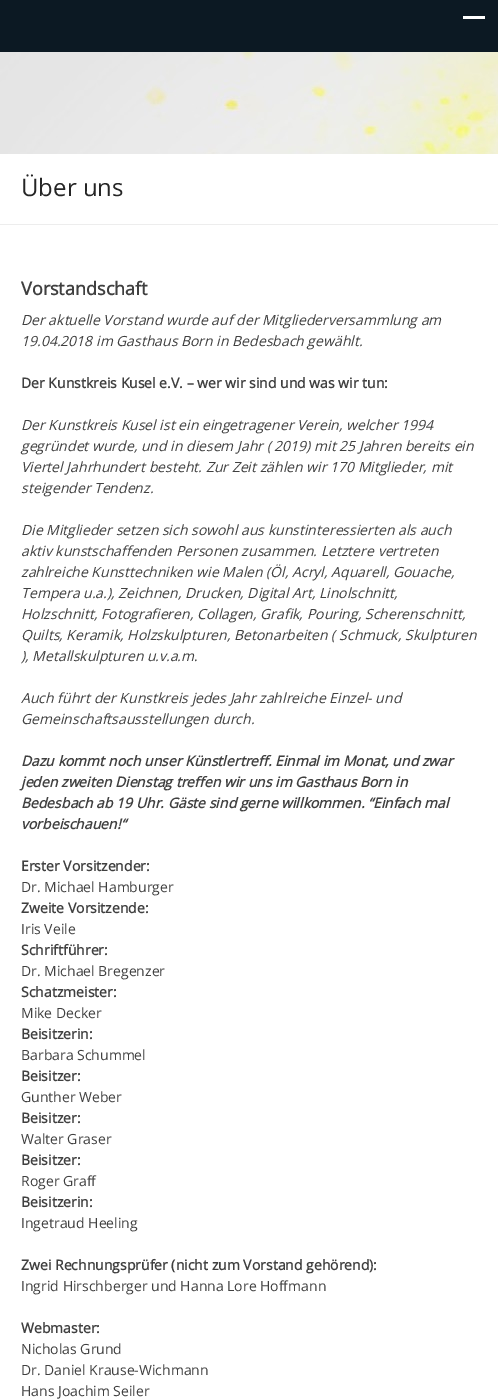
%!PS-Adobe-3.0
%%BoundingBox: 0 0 498 1400
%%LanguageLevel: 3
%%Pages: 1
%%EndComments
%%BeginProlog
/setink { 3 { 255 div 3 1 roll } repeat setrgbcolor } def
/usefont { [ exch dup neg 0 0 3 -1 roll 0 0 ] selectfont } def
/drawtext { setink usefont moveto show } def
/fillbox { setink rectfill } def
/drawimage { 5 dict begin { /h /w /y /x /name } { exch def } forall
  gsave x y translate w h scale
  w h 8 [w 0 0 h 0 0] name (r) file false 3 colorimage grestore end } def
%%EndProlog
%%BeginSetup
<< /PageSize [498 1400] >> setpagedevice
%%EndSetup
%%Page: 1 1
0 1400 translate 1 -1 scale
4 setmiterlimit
0 0 498 1400 255 255 255 fillbox
(assets/img1.rgb) 0 52 498 102 drawimage
0 0 498 52 12 25 35 fillbox
463 16 22 3 255 255 255 fillbox
0 224 498 1 237 237 237 fillbox
(Über uns) 21 196 /OpenSans-Regular 24 37 37 37 drawtext
(Vorstandschaft) 21 295 /OpenSans-Bold 18 64 64 64 drawtext
(Der aktuelle Vorstand wurde auf der Mitgliederversammlung am) 21 325 /OpenSans-Italic 14 64 64 64 drawtext
(19.04.2018 im Gasthaus Born in Bedesbach gewählt.) 21 346 /OpenSans-Italic 14 64 64 64 drawtext
(Der Kunstkreis Kusel e.V. – wer wir sind und was wir tun:) 21 388 /OpenSans-Bold 14 64 64 64 drawtext
(Der Kunstkreis Kusel ist ein eingetragener Verein, welcher 1994) 21 430 /OpenSans-Italic 14 64 64 64 drawtext
(gegründet wurde, und in diesem Jahr \( 2019\) mit 25 Jahren bereits ein) 21 451 /OpenSans-Italic 14 64 64 64 drawtext
(Viertel Jahrhundert besteht. Zur Zeit zählen wir 170 Mitglieder, mit) 21 472 /OpenSans-Italic 14 64 64 64 drawtext
(steigender Tendenz.) 21 493 /OpenSans-Italic 14 64 64 64 drawtext
(Die Mitglieder setzen sich sowohl aus kunstinteressierten als auch) 21 535 /OpenSans-Italic 14 64 64 64 drawtext
(aktiv kunstschaffenden Personen zusammen. Letztere vertreten) 21 556 /OpenSans-Italic 14 64 64 64 drawtext
(zahlreiche Kunsttechniken wie Malen \(Öl, Acryl, Aquarell, Gouache,) 21 577 /OpenSans-Italic 14 64 64 64 drawtext
(Tempera u.a.\), Zeichnen, Drucken, Digital Art, Linolschnitt,) 21 598 /OpenSans-Italic 14 64 64 64 drawtext
(Holzschnitt, Fotografieren, Collagen, Grafik, Pouring, Scherenschnitt,) 21 619 /OpenSans-Italic 14 64 64 64 drawtext
(Quilts, Keramik, Holzskulpturen, Betonarbeiten \( Schmuck, Skulpturen) 21 640 /OpenSans-Italic 14 64 64 64 drawtext
(\), Metallskulpturen u.v.a.m) 21 661 /OpenSans-Italic 14 64 64 64 drawtext
(.) 194 661 /OpenSans-Regular 14 64 64 64 drawtext
(Auch führt der Kunstkreis jedes Jahr zahlreiche Einzel- und) 21 703 /OpenSans-Italic 14 64 64 64 drawtext
(Gemeinschaftsausstellungen durch.) 21 724 /OpenSans-Italic 14 64 64 64 drawtext
(Dazu kommt noch unser Künstlertreff. Einmal im Monat, und zwar) 21 766 /OpenSans-BoldItalic 14 64 64 64 drawtext
(jeden zweiten Dienstag treffen wir uns im Gasthaus Born in) 21 787 /OpenSans-BoldItalic 14 64 64 64 drawtext
(Bedesbach ab 19 Uhr. Gäste sind gerne willkommen. “Einfach mal) 21 808 /OpenSans-BoldItalic 14 64 64 64 drawtext
(vorbeischauen!“) 21 829 /OpenSans-BoldItalic 14 64 64 64 drawtext
(Erster Vorsitzender:) 21 871 /OpenSans-Bold 14 64 64 64 drawtext
(Dr. Michael Hamburger) 21 892 /OpenSans-Regular 14 64 64 64 drawtext
(Zweite Vorsitzende:) 21 913 /OpenSans-Bold 14 64 64 64 drawtext
(Iris Veile) 21 934 /OpenSans-Regular 14 64 64 64 drawtext
(Schriftführer:) 21 955 /OpenSans-Bold 14 64 64 64 drawtext
(Dr. Michael Bregenzer) 21 976 /OpenSans-Regular 14 64 64 64 drawtext
(Schatzmeister:) 21 997 /OpenSans-Bold 14 64 64 64 drawtext
(Mike Decker) 21 1018 /OpenSans-Regular 14 64 64 64 drawtext
(Beisitzerin:) 21 1039 /OpenSans-Bold 14 64 64 64 drawtext
(Barbara Schummel) 21 1060 /OpenSans-Regular 14 64 64 64 drawtext
(Beisitzer:) 21 1081 /OpenSans-Bold 14 64 64 64 drawtext
(Gunther Weber) 21 1102 /OpenSans-Regular 14 64 64 64 drawtext
(Beisitzer:) 21 1123 /OpenSans-Bold 14 64 64 64 drawtext
(Walter Graser) 21 1144 /OpenSans-Regular 14 64 64 64 drawtext
(Beisitzer:) 21 1165 /OpenSans-Bold 14 64 64 64 drawtext
(Roger Graff) 21 1186 /OpenSans-Regular 14 64 64 64 drawtext
(Beisitzerin:) 21 1207 /OpenSans-Bold 14 64 64 64 drawtext
(Ingetraud Heeling) 21 1228 /OpenSans-Regular 14 64 64 64 drawtext
(Zwei Rechnungsprüfer \(nicht zum Vorstand gehörend\):) 21 1270 /OpenSans-Bold 14 64 64 64 drawtext
(Ingrid Hirschberger und Hanna Lore Hoffmann) 21 1291 /OpenSans-Regular 14 64 64 64 drawtext
(Webmaster:) 21 1333 /OpenSans-Bold 14 64 64 64 drawtext
(Nicholas Grund) 21 1354 /OpenSans-Regular 14 64 64 64 drawtext
(Dr. Daniel Krause-Wichmann) 21 1375 /OpenSans-Regular 14 64 64 64 drawtext
(Hans Joachim Seiler) 21 1396 /OpenSans-Regular 14 64 64 64 drawtext
showpage
%%EOF
